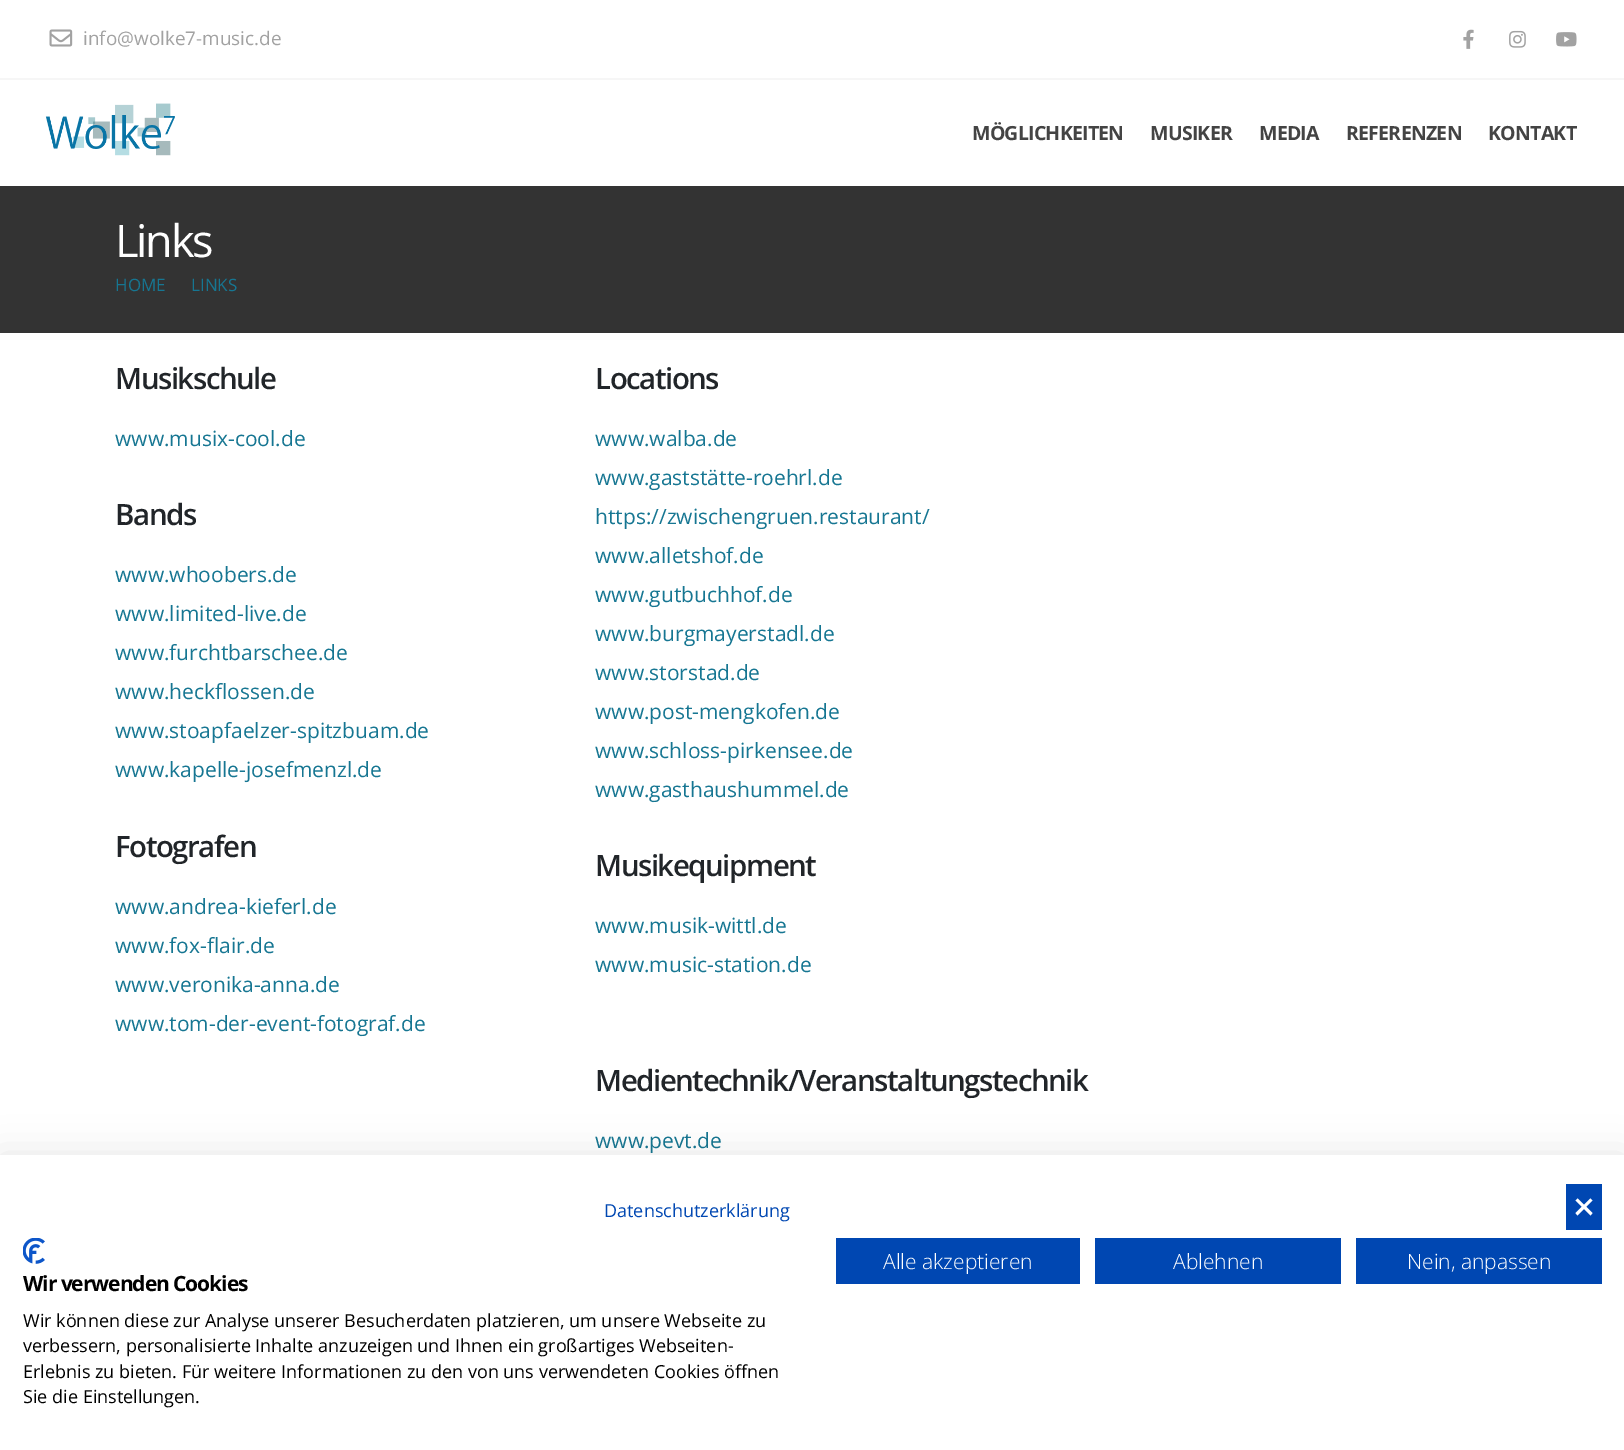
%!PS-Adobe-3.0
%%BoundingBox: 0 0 1624 1450
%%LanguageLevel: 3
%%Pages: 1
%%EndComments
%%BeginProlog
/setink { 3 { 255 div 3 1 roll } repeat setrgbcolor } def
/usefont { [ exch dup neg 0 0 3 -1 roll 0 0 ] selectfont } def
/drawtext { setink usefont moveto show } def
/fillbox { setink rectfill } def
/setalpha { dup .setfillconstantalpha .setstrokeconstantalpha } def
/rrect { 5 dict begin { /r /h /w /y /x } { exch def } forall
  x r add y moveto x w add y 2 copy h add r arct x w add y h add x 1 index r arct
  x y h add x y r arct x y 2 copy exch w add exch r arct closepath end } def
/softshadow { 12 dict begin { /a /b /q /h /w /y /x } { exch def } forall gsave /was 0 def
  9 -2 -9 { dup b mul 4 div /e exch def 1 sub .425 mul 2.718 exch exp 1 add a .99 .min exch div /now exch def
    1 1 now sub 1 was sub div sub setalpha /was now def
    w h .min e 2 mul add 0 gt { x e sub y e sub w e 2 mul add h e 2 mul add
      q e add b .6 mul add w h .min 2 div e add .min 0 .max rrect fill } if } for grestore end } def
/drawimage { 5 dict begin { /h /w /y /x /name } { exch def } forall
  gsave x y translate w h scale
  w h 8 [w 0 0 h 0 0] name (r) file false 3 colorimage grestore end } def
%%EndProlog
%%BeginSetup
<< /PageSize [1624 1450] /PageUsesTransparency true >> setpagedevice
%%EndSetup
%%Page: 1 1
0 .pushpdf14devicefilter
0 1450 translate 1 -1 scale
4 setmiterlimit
0 0 1624 1450 255 255 255 fillbox
0 78 1624 2 246 246 246 fillbox
(assets/img1.rgb) 49 29 24 18 drawimage
(info@wolke7-music.de) 83 45 /OpenSans-Regular 18.9 162 162 162 drawtext
(assets/img2.rgb) 1463 29 11 20 drawimage
(assets/img3.rgb) 1509 30 17 18 drawimage
(assets/img4.rgb) 1556 32 21 15 drawimage
(assets/img5.rgb) 45 103 130 53 drawimage
/OpenSans-Bold 19.5 usefont
68 68 68 setink
972 140 moveto -0.75 0 (MÖGLICHKEITEN) ashow
1150 140 moveto -0.75 0 (MUSIKER) ashow
1259 140 moveto -0.75 0 (MEDIA) ashow
1346 140 moveto -0.75 0 (REFERENZEN) ashow
1488 140 moveto -0.75 0 (KONTAKT) ashow
0 186 1624 147 51 51 51 fillbox
/OpenSans-Regular 45 usefont
255 255 255 setink
115 257 moveto -2.25 0 (Links) ashow
(HOME) 115 291 /OpenSans-Regular 17 22 118 146 drawtext
(LINKS) 191 291 /OpenSans-Regular 17 22 118 146 drawtext
/OpenSans-SemiBold 29.4 usefont
33 37 41 setink
115 389 moveto -1.45 0 (Musikschule) ashow
(www.musix-cool.de) 115 446 /OpenSans-Regular 21 22 118 146 drawtext
/OpenSans-SemiBold 29.4 usefont
33 37 41 setink
115 525 moveto -1.45 0 (Bands) ashow
(www.whoobers.de) 115 582 /OpenSans-Regular 21 22 118 146 drawtext
(www.limited-live.de) 115 621 /OpenSans-Regular 21 22 118 146 drawtext
(www.furchtbarschee.de) 115 660 /OpenSans-Regular 21 22 118 146 drawtext
(www.heckflossen.de) 115 699 /OpenSans-Regular 21 22 118 146 drawtext
(www.stoapfaelzer-spitzbuam.de) 115 738 /OpenSans-Regular 21 22 118 146 drawtext
(www.kapelle-josefmenzl.de) 115 777 /OpenSans-Regular 21 22 118 146 drawtext
/OpenSans-SemiBold 29.4 usefont
33 37 41 setink
115 857 moveto -1.45 0 (Fotografen) ashow
(www.andrea-kieferl.de) 115 914 /OpenSans-Regular 21 22 118 146 drawtext
(www.fox-flair.de) 115 953 /OpenSans-Regular 21 22 118 146 drawtext
(www.veronika-anna.de) 115 992 /OpenSans-Regular 21 22 118 146 drawtext
(www.tom-der-event-fotograf.de) 115 1031 /OpenSans-Regular 21 22 118 146 drawtext
/OpenSans-SemiBold 29.4 usefont
33 37 41 setink
595 389 moveto -1.45 0 (Locations) ashow
(www.walba.de) 595 446 /OpenSans-Regular 21 22 118 146 drawtext
(www.gaststätte-roehrl.de) 595 485 /OpenSans-Regular 21 22 118 146 drawtext
(https://zwischengruen.restaurant/) 595 524 /OpenSans-Regular 21 22 118 146 drawtext
(www.alletshof.de) 595 563 /OpenSans-Regular 21 22 118 146 drawtext
(www.gutbuchhof.de) 595 602 /OpenSans-Regular 21 22 118 146 drawtext
(www.burgmayerstadl.de) 595 641 /OpenSans-Regular 21 22 118 146 drawtext
(www.storstad.de) 595 680 /OpenSans-Regular 21 22 118 146 drawtext
(www.post-mengkofen.de) 595 719 /OpenSans-Regular 21 22 118 146 drawtext
(www.schloss-pirkensee.de) 595 758 /OpenSans-Regular 21 22 118 146 drawtext
(www.gasthaushummel.de) 595 797 /OpenSans-Regular 21 22 118 146 drawtext
/OpenSans-SemiBold 29.4 usefont
33 37 41 setink
595 876 moveto -1.45 0 (Musikequipment) ashow
(www.musik-wittl.de) 595 933 /OpenSans-Regular 21 22 118 146 drawtext
(www.music-station.de) 595 972 /OpenSans-Regular 21 22 118 146 drawtext
/OpenSans-SemiBold 29.4 usefont
33 37 41 setink
595 1091 moveto -1.45 0 (Medientechnik/Veranstaltungstechnik) ashow
(www.pevt.de) 595 1148 /OpenSans-Regular 21 22 118 146 drawtext
0 0 0 setink
0 1155 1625 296 0 18 0.1 softshadow
0 1155 1624 295 255 255 255 fillbox
(Datenschutzerklärung) 604 1217 /OpenSans-Regular 18 0 71 178 drawtext
1566 1184 36 46 0 71 178 fillbox
255 255 255 setink
1590.5 1198.5 moveto 1592.5 1200.5 lineto 1577.5 1215.5 lineto 1575.5 1213 lineto closepath fill
1575.5 1200.5 moveto 1577.5 1198.5 lineto 1592.5 1213 lineto 1590.5 1215.5 lineto closepath fill
836 1238 244 46 0 71 178 fillbox
(Alle akzeptieren) 883 1269 /OpenSans-Light 21 255 255 255 drawtext
1095 1238 246 46 0 71 178 fillbox
(Ablehnen) 1173 1269 /OpenSans-Light 21 255 255 255 drawtext
1356 1238 246 46 0 71 178 fillbox
(Nein, anpassen) 1407 1269 /OpenSans-Light 21 255 255 255 drawtext
(assets/img6.rgb) 23 1238 22 26 drawimage
/OpenSans-Bold 21 usefont
0 0 0 setink
23 1291 moveto -1.05 0 (Wir verwenden Cookies) ashow
(Wir können diese zur Analyse unserer Besucherdaten platzieren, um unsere Webseite zu) 23 1327 /OpenSans-Regular 18 0 0 0 drawtext
(verbessern, personalisierte Inhalte anzuzeigen und Ihnen ein großartiges Webseiten-) 23 1352 /OpenSans-Regular 18 0 0 0 drawtext
(Erlebnis zu bieten. Für weitere Informationen zu den von uns verwendeten Cookies öffnen) 23 1378 /OpenSans-Regular 18 0 0 0 drawtext
(Sie die Einstellungen.) 23 1403 /OpenSans-Regular 18 0 0 0 drawtext
.poppdf14devicefilter showpage
%%EOF
